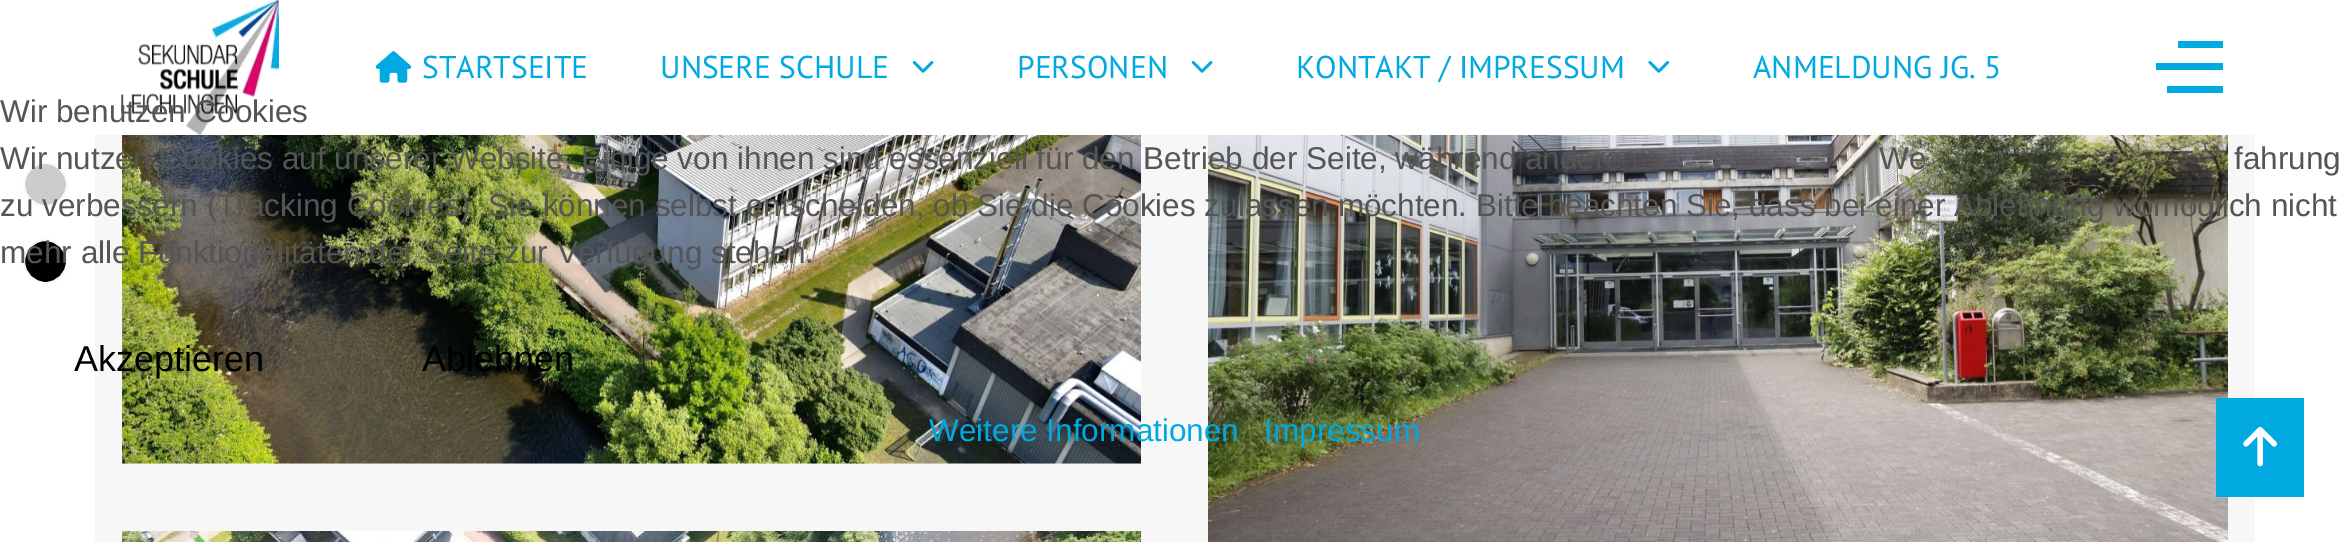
%!PS-Adobe-3.0
%%BoundingBox: 0 0 2349 542
%%LanguageLevel: 3
%%Pages: 1
%%EndComments
%%BeginProlog
/setink { 3 { 255 div 3 1 roll } repeat setrgbcolor } def
/usefont { [ exch dup neg 0 0 3 -1 roll 0 0 ] selectfont } def
/drawtext { setink usefont moveto show } def
/fillbox { setink rectfill } def
/disc { newpath 0 360 arc closepath } def
/drawimage { 5 dict begin { /h /w /y /x /name } { exch def } forall
  gsave x y translate w h scale
  w h 8 [w 0 0 h 0 0] name (r) file false 3 colorimage grestore end } def
%%EndProlog
%%BeginSetup
<< /PageSize [2349 542] >> setpagedevice
%%EndSetup
%%Page: 1 1
0 542 translate 1 -1 scale
4 setmiterlimit
0 0 2349 542 255 255 255 fillbox
(assets/img1.rgb) 121 0 158 135 drawimage
(assets/img2.rgb) 375 51 37 32 drawimage
(STARTSEITE) 422 78 /PTSans-Regular 31.5 0 169 224 drawtext
(UNSERE SCHULE) 660 78 /PTSans-Regular 31.5 0 169 224 drawtext
(assets/img3.rgb) 912 61 22 12 drawimage
(PERSONEN) 1017 78 /PTSans-Regular 31.5 0 169 224 drawtext
(assets/img3.rgb) 1191 61 22 12 drawimage
(KONTAKT / IMPRESSUM) 1296 78 /PTSans-Regular 31.5 0 169 224 drawtext
(assets/img4.rgb) 1648 61 22 12 drawimage
(ANMELDUNG JG. 5) 1753 78 /PTSans-Regular 31.5 0 169 224 drawtext
2156 63 67 7 0 169 224 fillbox
2178 41 45 7 0 169 224 fillbox
2167 86 56 7 0 169 224 fillbox
204 204 204 setink
45.5 184.5 21.5 disc gsave fill grestore
249 249 249 setink
2 setlinewidth
stroke
0 0 0 setink
45.5 261.5 21.5 disc gsave fill grestore
249 249 249 setink
stroke
95 135 2160 407 247 247 247 fillbox
(assets/img5.rgb) 122 135 1019 329 drawimage
(assets/img6.rgb) 1208 135 1020 407 drawimage
(assets/img7.rgb) 122 531 1019 11 drawimage
(Wir benutzen Cookies) 0 122 /LiberationSans-Regular 31.5 85 85 85 drawtext
(Wir nutzen Cookies auf unserer Website. Einige von ihnen sind essenziell für den Betrieb der Seite, während andere) 0 169 /LiberationSans-Regular 31.5 85 85 85 drawtext
(We) 1879 169 /LiberationSans-Regular 31.5 85 85 85 drawtext
(fahrung) 2234 169 /LiberationSans-Regular 31.5 85 85 85 drawtext
(zu verbessern \(Tracking Cookies\). Sie können selbst entscheiden, ob Sie die Cookies zulassen möchten. Bitte beachten Sie, dass bei einer Ablehnung womöglich nicht) 0 216 /LiberationSans-Regular 31.5 85 85 85 drawtext
(mehr alle Funktionalitäten der Seite zur Verfügung stehen.) 0 263 /LiberationSans-Regular 31.5 85 85 85 drawtext
(Akzeptieren) 74 371 /LiberationSans-Regular 36 0 0 0 drawtext
(Ablehnen) 422 371 /LiberationSans-Regular 36 0 0 0 drawtext
(Weitere Informationen) 929 441 /LiberationSans-Regular 31.5 0 169 224 drawtext
(Impressum) 1264 441 /LiberationSans-Regular 31.5 0 169 224 drawtext
2216 398 88 99 0 169 224 fillbox
(assets/img8.rgb) 2243 427 34 40 drawimage
showpage
%%EOF
